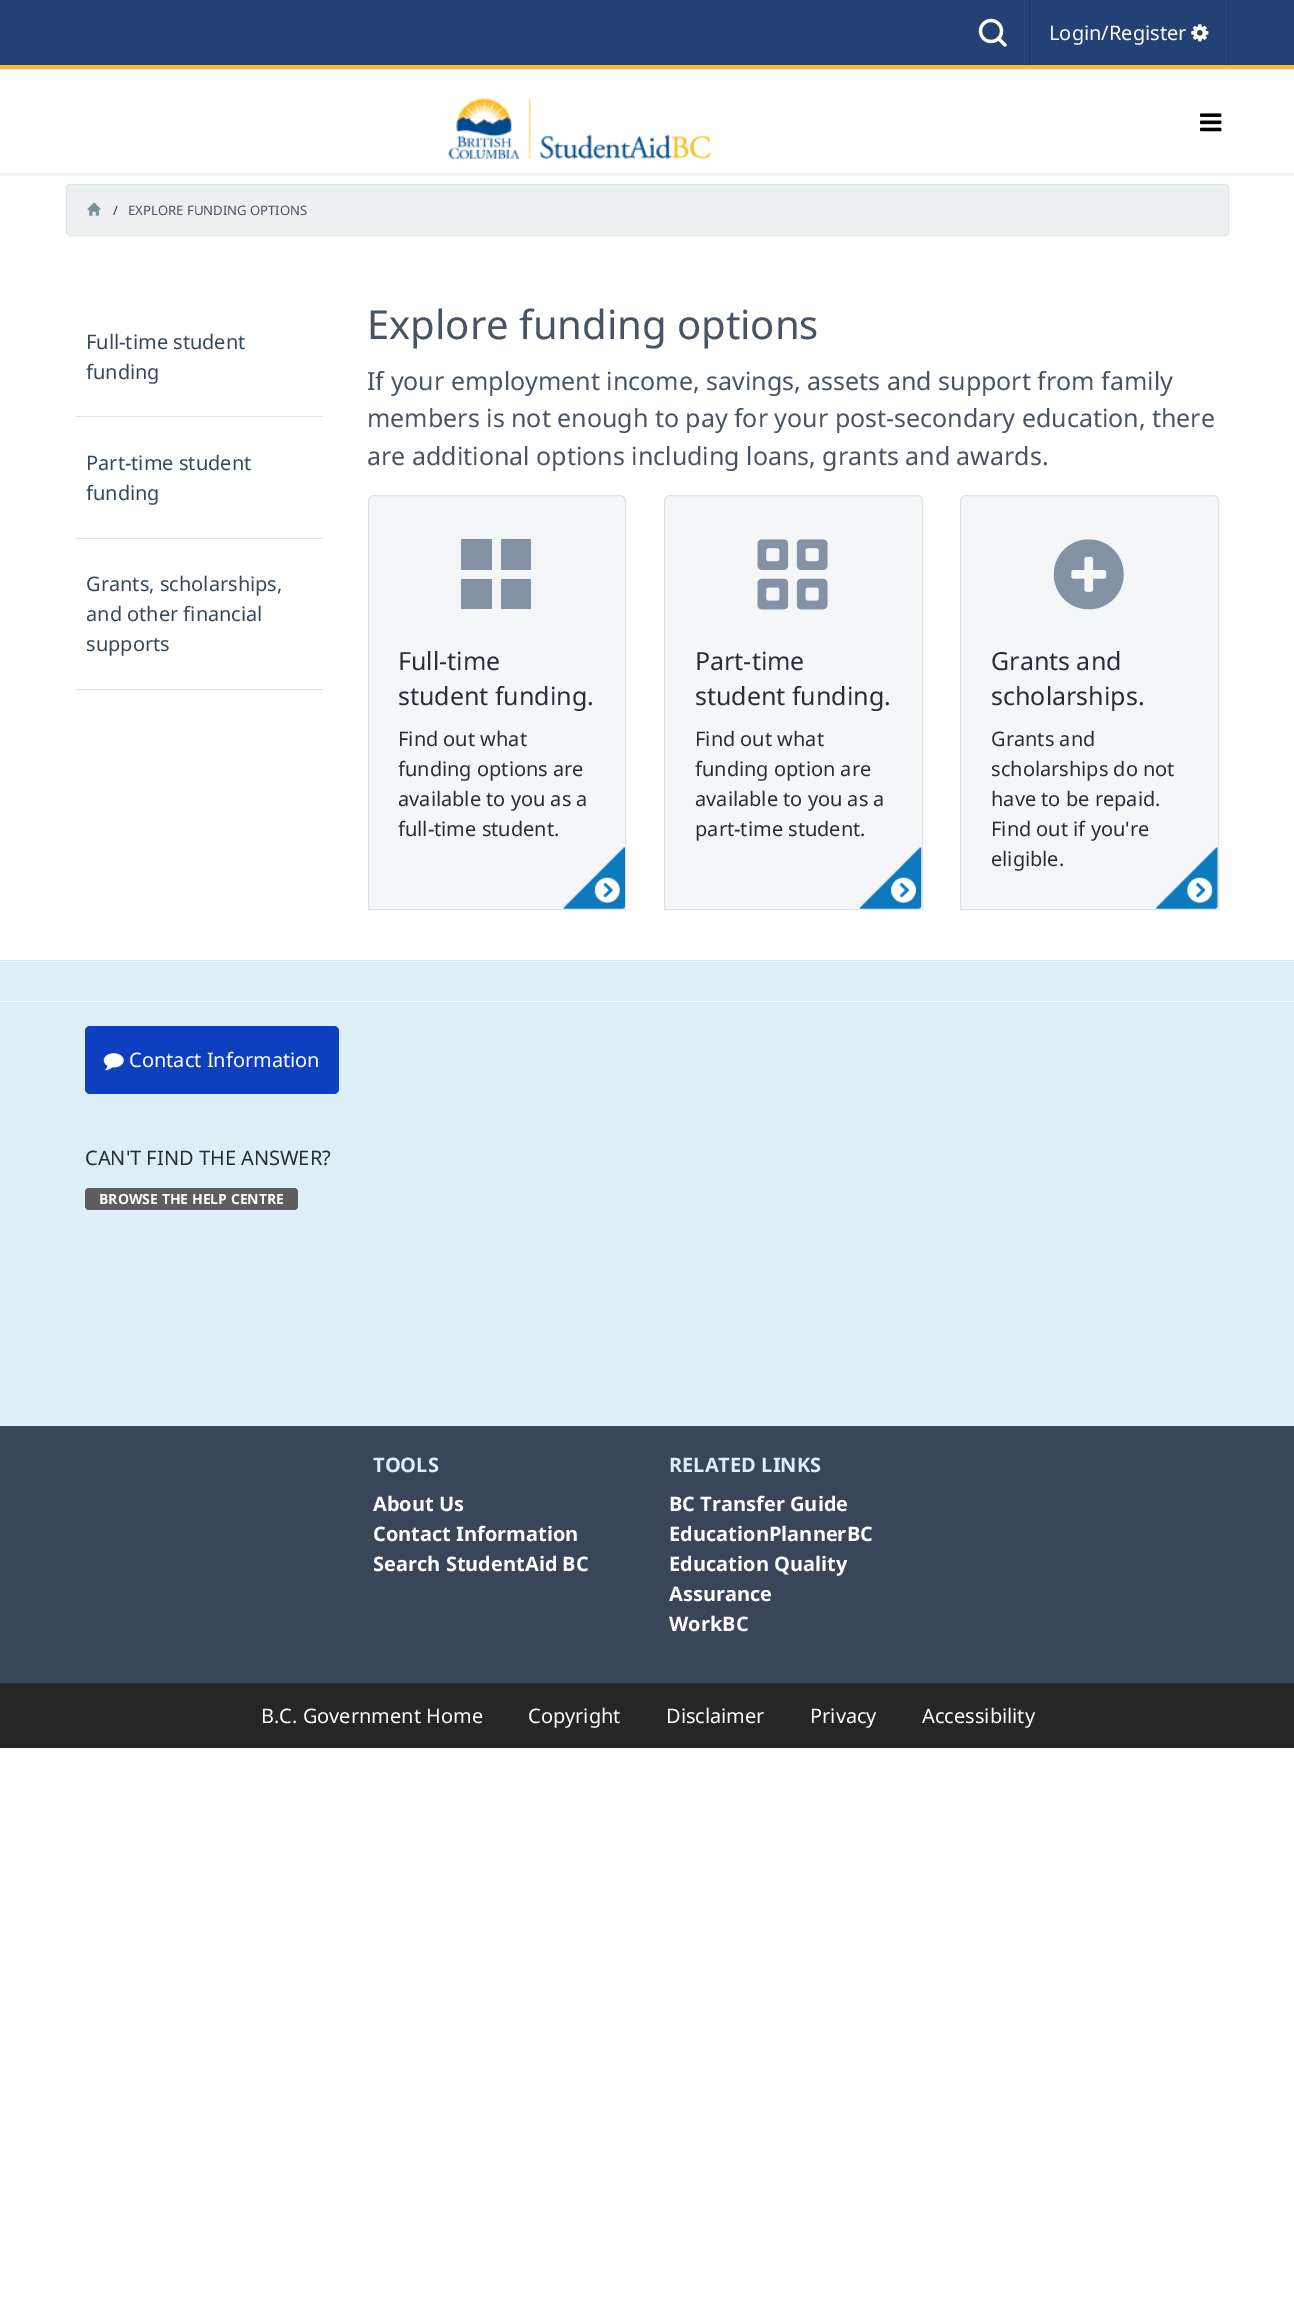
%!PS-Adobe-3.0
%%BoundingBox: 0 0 1294 2324
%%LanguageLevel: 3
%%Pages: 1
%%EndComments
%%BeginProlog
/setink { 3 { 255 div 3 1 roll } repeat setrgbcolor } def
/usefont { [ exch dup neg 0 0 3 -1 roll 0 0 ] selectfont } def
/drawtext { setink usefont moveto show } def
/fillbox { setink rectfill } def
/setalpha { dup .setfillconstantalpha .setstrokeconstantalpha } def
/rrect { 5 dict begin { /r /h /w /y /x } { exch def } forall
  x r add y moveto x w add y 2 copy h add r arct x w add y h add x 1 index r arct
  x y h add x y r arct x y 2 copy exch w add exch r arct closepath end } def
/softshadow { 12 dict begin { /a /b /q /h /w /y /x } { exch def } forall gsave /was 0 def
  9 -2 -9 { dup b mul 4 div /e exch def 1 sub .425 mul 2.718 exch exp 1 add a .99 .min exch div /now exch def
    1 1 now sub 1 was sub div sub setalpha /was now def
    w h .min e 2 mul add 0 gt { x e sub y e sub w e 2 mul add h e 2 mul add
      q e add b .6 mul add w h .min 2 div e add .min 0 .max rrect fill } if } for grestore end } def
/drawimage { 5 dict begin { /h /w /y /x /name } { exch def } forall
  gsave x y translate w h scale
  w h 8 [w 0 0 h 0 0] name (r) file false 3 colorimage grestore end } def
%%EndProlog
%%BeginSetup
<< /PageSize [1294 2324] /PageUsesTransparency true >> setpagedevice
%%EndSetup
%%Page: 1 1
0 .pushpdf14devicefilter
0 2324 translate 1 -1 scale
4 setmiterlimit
0 0 1294 2324 255 255 255 fillbox
82 63 105 setink
0 0 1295 69 0 25 0.1 softshadow
0 0 1294 65 35 65 117 fillbox
0 65 1294 4 252 185 41 fillbox
1029 0 1 65 29 54 97 fillbox
(assets/img1.rgb) 978 18 29 29 drawimage
1228 0 1 65 29 54 97 fillbox
(Login/Register) 1049 40 /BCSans-Regular 20 255 255 255 drawtext
(assets/img2.rgb) 1191 24 18 18 drawimage
0 172 1294 4 242 242 242 fillbox
0.9 setalpha
0 69 1294 104 255 255 255 fillbox
1 setalpha
(assets/img3.rgb) 448 98 262 61 drawimage
(assets/img4.rgb) 1200 113 22 19 drawimage
236 240 241 setink
66.5 184.5 1162 51 3.5 rrect gsave fill grestore
221 228 230 setink
stroke
(assets/img5.rgb) 87 202 14 14 drawimage
(/) 113 215 /BCSans-Regular 13.1 50 58 69 drawtext
(EXPLORE FUNDING OPTIONS) 128 215 /BCSans-Regular 13.1 72 83 99 drawtext
76 416 247 1 218 226 237 fillbox
(Full-time student) 86 349 /BCSans-Regular 20 52 73 94 drawtext
(funding) 86 379 /BCSans-Regular 20 52 73 94 drawtext
76 538 247 1 218 226 237 fillbox
(Part-time student) 86 470 /BCSans-Regular 20 52 73 94 drawtext
(funding) 86 500 /BCSans-Regular 20 52 73 94 drawtext
76 689 247 1 218 226 237 fillbox
(Grants, scholarships,) 86 591 /BCSans-Regular 20 52 73 94 drawtext
(and other financial) 86 621 /BCSans-Regular 20 52 73 94 drawtext
(supports) 86 651 /BCSans-Regular 20 52 73 94 drawtext
(Explore funding options) 367 339 /BCSans-Regular 40 72 83 99 drawtext
(If your employment income, savings, assets and support from family) 367 390 /BCSans-Regular 25 72 83 99 drawtext
(members is not enough to pay for your post-secondary education, there) 367 427 /BCSans-Regular 25 72 83 99 drawtext
(are additional options including loans, grants and awards.) 367 465 /BCSans-Regular 25 72 83 99 drawtext
244 246 247 setink
374 495.5 moveto 620 495.5 lineto 623 495.5 625.5 498 625.5 501 curveto 625.5 909.5 lineto 368.5 909.5 lineto 368.5 501 lineto 368.5 498 371 495.5 374 495.5 curveto closepath gsave fill grestore
221 228 230 setink
stroke
132 146 166 setink
501 609 moveto 501 579 lineto 531 579 lineto 531 609 lineto closepath 501 539 moveto 531 539 lineto 531 570 lineto 501 570 lineto closepath 461 579 moveto 492 579 lineto 492 609 lineto 461 609 lineto closepath 461 539 moveto 492 539 lineto 492 570 lineto 461 570 lineto closepath fill
(Full-time) 398 670 /BCSans-Regular 25 39 46 55 drawtext
(student funding.) 398 705 /BCSans-Regular 25 39 46 55 drawtext
(Find out what) 398 746 /BCSans-Regular 20 39 46 55 drawtext
(funding options are) 398 776 /BCSans-Regular 20 39 46 55 drawtext
(available to you as a) 398 806 /BCSans-Regular 20 39 46 55 drawtext
(full-time student.) 398 836 /BCSans-Regular 20 39 46 55 drawtext
(assets/img6.rgb) 563 847 62 62 drawimage
244 246 247 setink
670 495.5 moveto 917 495.5 lineto 920 495.5 922.5 498 922.5 501 curveto 922.5 909.5 lineto 664.5 909.5 lineto 664.5 501 lineto 664.5 498 667 495.5 670 495.5 curveto closepath gsave fill grestore
221 228 230 setink
stroke
(assets/img7.rgb) 757 539 71 71 drawimage
(Part-time) 695 670 /BCSans-Regular 25 39 46 55 drawtext
(student funding.) 695 705 /BCSans-Regular 25 39 46 55 drawtext
(Find out what) 695 746 /BCSans-Regular 20 39 46 55 drawtext
(funding option are) 695 776 /BCSans-Regular 20 39 46 55 drawtext
(available to you as a) 695 806 /BCSans-Regular 20 39 46 55 drawtext
(part-time student.) 695 836 /BCSans-Regular 20 39 46 55 drawtext
(assets/img8.rgb) 860 847 62 62 drawimage
244 246 247 setink
966 495.5 moveto 1213 495.5 lineto 1216 495.5 1218.5 498 1218.5 501 curveto 1218.5 909.5 lineto 960.5 909.5 lineto 960.5 501 lineto 960.5 498 963 495.5 966 495.5 curveto closepath gsave fill grestore
221 228 230 setink
stroke
(assets/img9.rgb) 1053 539 71 71 drawimage
(Grants and) 991 670 /BCSans-Regular 25 39 46 55 drawtext
(scholarships.) 991 705 /BCSans-Regular 25 39 46 55 drawtext
(Grants and) 991 746 /BCSans-Regular 20 39 46 55 drawtext
(scholarships do not) 991 776 /BCSans-Regular 20 39 46 55 drawtext
(have to be repaid.) 991 806 /BCSans-Regular 20 39 46 55 drawtext
(Find out if you're) 991 836 /BCSans-Regular 20 39 46 55 drawtext
(eligible.) 991 866 /BCSans-Regular 20 39 46 55 drawtext
(assets/img10.rgb) 1156 847 62 62 drawimage
0 962 1294 464 221 238 246 fillbox
0 960 1294 1 201 228 241 fillbox
0 1001 1294 1 255 255 255 fillbox
13 63 191 setink
85 1026 254 68 5 rrect fill
(assets/img11.rgb) 103 1053 21 18 drawimage
(Contact Information) 129 1067 /BCSans-Regular 20 255 255 255 drawtext
(CAN'T FIND THE ANSWER?) 85 1165 /BCSans-Regular 20 39 46 55 drawtext
93 93 93 setink
85 1188 213 22 4 rrect fill
(BROWSE THE HELP CENTRE) 99 1204 /BCSans-Bold 14 255 255 255 drawtext
0 1426 1294 257 57 69 89 fillbox
(TOOLS) 373 1472 /BCSans-Bold 20 221 238 246 drawtext
(About Us) 373 1511 /BCSans-Bold 20 255 255 255 drawtext
(Contact Information) 373 1541 /BCSans-Bold 20 255 255 255 drawtext
(Search StudentAid BC) 373 1571 /BCSans-Bold 20 255 255 255 drawtext
(RELATED LINKS) 669 1472 /BCSans-Bold 20 221 238 246 drawtext
(BC Transfer Guide) 669 1511 /BCSans-Bold 20 255 255 255 drawtext
(EducationPlannerBC) 669 1541 /BCSans-Bold 20 255 255 255 drawtext
(Education Quality) 669 1571 /BCSans-Bold 20 255 255 255 drawtext
(Assurance) 669 1601 /BCSans-Bold 20 255 255 255 drawtext
(WorkBC) 669 1631 /BCSans-Bold 20 255 255 255 drawtext
0 1683 1294 65 38 38 38 fillbox
(B.C. Government Home) 261 1723 /BCSans-Regular 20 255 255 255 drawtext
(Copyright) 528 1723 /BCSans-Regular 20 255 255 255 drawtext
(Disclaimer) 666 1723 /BCSans-Regular 20 255 255 255 drawtext
(Privacy) 810 1723 /BCSans-Regular 20 255 255 255 drawtext
(Accessibility) 922 1723 /BCSans-Regular 20 255 255 255 drawtext
.poppdf14devicefilter showpage
%%EOF
